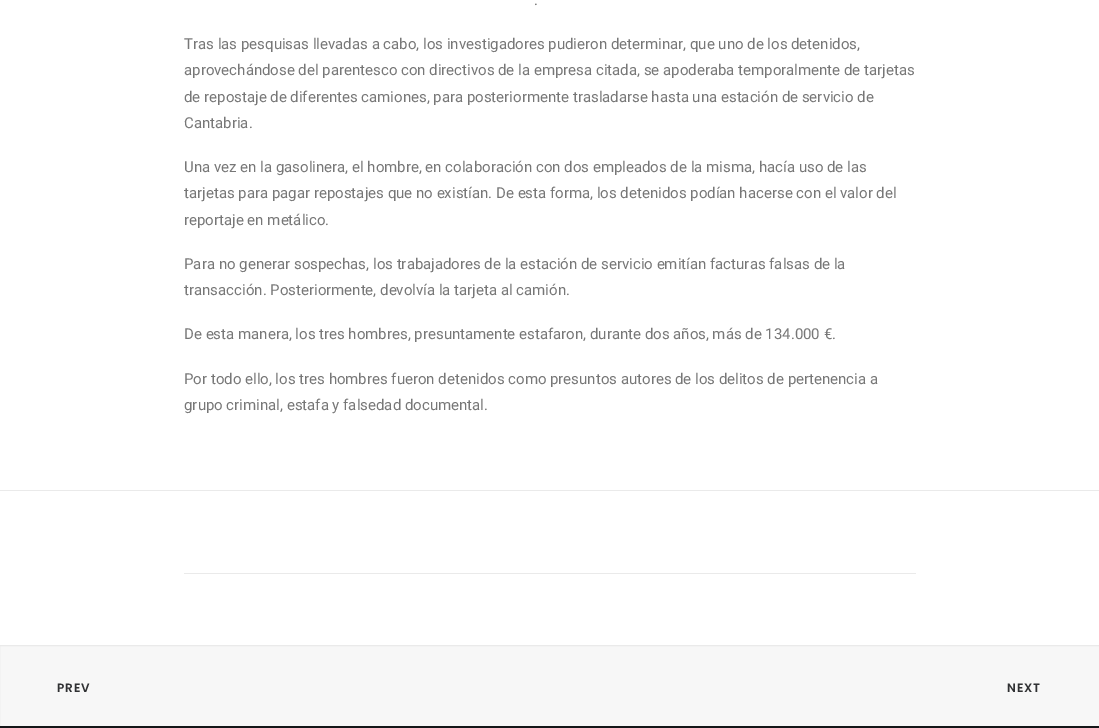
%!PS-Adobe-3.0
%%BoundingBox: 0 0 1099 728
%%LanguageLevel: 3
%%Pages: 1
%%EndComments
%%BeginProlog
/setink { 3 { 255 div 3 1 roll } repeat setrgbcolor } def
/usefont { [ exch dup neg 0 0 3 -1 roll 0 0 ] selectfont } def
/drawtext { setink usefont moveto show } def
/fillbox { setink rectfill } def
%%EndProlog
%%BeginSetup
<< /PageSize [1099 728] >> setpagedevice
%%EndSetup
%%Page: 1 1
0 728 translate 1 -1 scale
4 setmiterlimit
0 0 1099 728 255 255 255 fillbox
(.) 534 5 /Roboto-Regular 15 119 119 119 drawtext
(Tras las pesquisas llevadas a cabo, los investigadores pudieron determinar, que uno de los detenidos,) 184 49 /Roboto-Regular 15 119 119 119 drawtext
(aprovechándose del parentesco con directivos de la empresa citada, se apoderaba temporalmente de tarjetas) 184 75 /Roboto-Regular 15 119 119 119 drawtext
(de repostaje de diferentes camiones, para posteriormente trasladarse hasta una estación de servicio de) 184 102 /Roboto-Regular 15 119 119 119 drawtext
(Cantabria.) 184 128 /Roboto-Regular 15 119 119 119 drawtext
(Una vez en la gasolinera, el hombre, en colaboración con dos empleados de la misma, hacía uso de las) 184 172 /Roboto-Regular 15 119 119 119 drawtext
(tarjetas para pagar repostajes que no existían. De esta forma, los detenidos podían hacerse con el valor del) 184 198 /Roboto-Regular 15 119 119 119 drawtext
(reportaje en metálico.) 184 225 /Roboto-Regular 15 119 119 119 drawtext
(Para no generar sospechas, los trabajadores de la estación de servicio emitían facturas falsas de la) 184 269 /Roboto-Regular 15 119 119 119 drawtext
(transacción. Posteriormente, devolvía la tarjeta al camión.) 184 295 /Roboto-Regular 15 119 119 119 drawtext
(De esta manera, los tres hombres, presuntamente estafaron, durante dos años, más de 134.000 €.) 184 339 /Roboto-Regular 15 119 119 119 drawtext
(Por todo ello, los tres hombres fueron detenidos como presuntos autores de los delitos de pertenencia a) 184 384 /Roboto-Regular 15 119 119 119 drawtext
(grupo criminal, estafa y falsedad documental.) 184 410 /Roboto-Regular 15 119 119 119 drawtext
0 490 1099 1 234 234 234 fillbox
184 573 732 1 234 234 234 fillbox
247 247 247 setink
-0.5 645.5 moveto 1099.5 645.5 lineto 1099.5 726.5 lineto -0.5 726.5 lineto closepath gsave fill grestore
234 234 234 setink
stroke
/Poppins-SemiBold 12 usefont
48 49 51 setink
57 692 moveto 1 0 (PREV) ashow
1007 692 moveto 1 0 (NEXT) ashow
0 726 1099 2 20 22 24 fillbox
showpage
%%EOF
